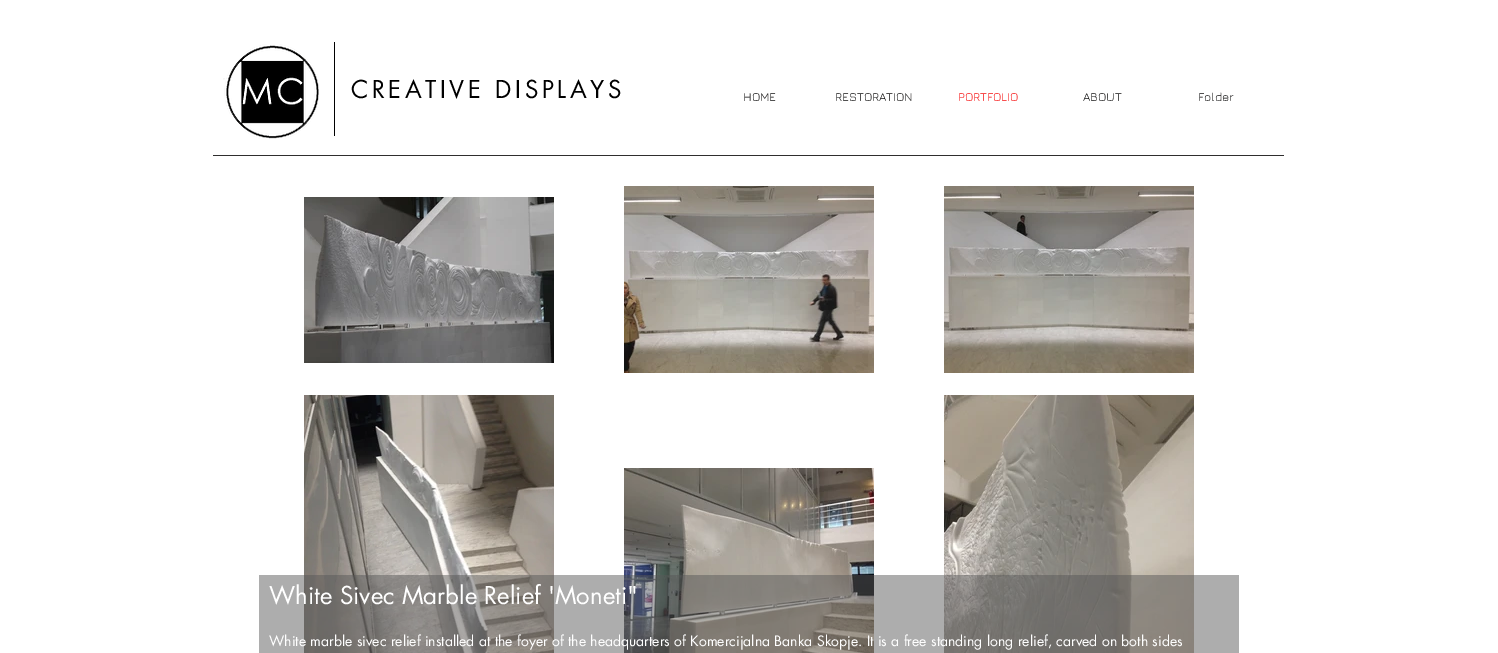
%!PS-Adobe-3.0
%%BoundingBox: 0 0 1498 653
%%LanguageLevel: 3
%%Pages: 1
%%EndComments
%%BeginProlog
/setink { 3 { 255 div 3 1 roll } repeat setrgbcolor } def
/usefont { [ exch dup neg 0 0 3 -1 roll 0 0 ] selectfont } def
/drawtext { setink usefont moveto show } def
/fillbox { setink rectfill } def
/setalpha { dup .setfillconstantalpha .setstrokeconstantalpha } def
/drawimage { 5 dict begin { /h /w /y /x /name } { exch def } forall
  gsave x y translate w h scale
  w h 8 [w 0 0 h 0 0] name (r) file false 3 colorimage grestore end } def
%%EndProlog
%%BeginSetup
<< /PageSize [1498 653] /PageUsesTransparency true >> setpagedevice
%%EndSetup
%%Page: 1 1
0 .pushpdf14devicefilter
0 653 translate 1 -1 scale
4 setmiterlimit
0 0 1498 653 255 255 255 fillbox
(assets/img1.rgb) 223 44 96 95 drawimage
334 42 1 94 0 0 0 fillbox
/futura-Regular 24 usefont
351 98 moveto 3.6 0 (CREATIVE DISPLAYS) ashow
(HOME) 743 101 /Jura-Regular 12 17 16 16 drawtext
(RESTORATION) 835 101 /Jura-Regular 12 17 16 16 drawtext
(PORTFOLIO) 958 101 /Jura-Regular 12 246 14 14 drawtext
(ABOUT) 1083 101 /Jura-Regular 12 17 16 16 drawtext
(Folder) 1198 101 /Jura-Regular 12 17 16 16 drawtext
213 155 1071 1 47 46 46 fillbox
(assets/img2.rgb) 304 197 250 166 drawimage
(assets/img3.rgb) 624 186 250 187 drawimage
(assets/img4.rgb) 944 186 250 187 drawimage
(assets/img5.rgb) 304 395 250 258 drawimage
(assets/img6.rgb) 624 468 250 185 drawimage
(assets/img7.rgb) 944 395 250 258 drawimage
0.49 setalpha
259 575 980 78 87 87 87 fillbox
1 setalpha
(White Sivec Marble Relief 'Moneti") 269 604 /futura-Regular 24 255 255 255 drawtext
(White marble sivec relief installed at the foyer of the headquarters of Komercijalna Banka Skopje. It is a free standing long relief, carved on both sides) 269 646 /futura-Regular 14 255 255 255 drawtext
.poppdf14devicefilter showpage
%%EOF
